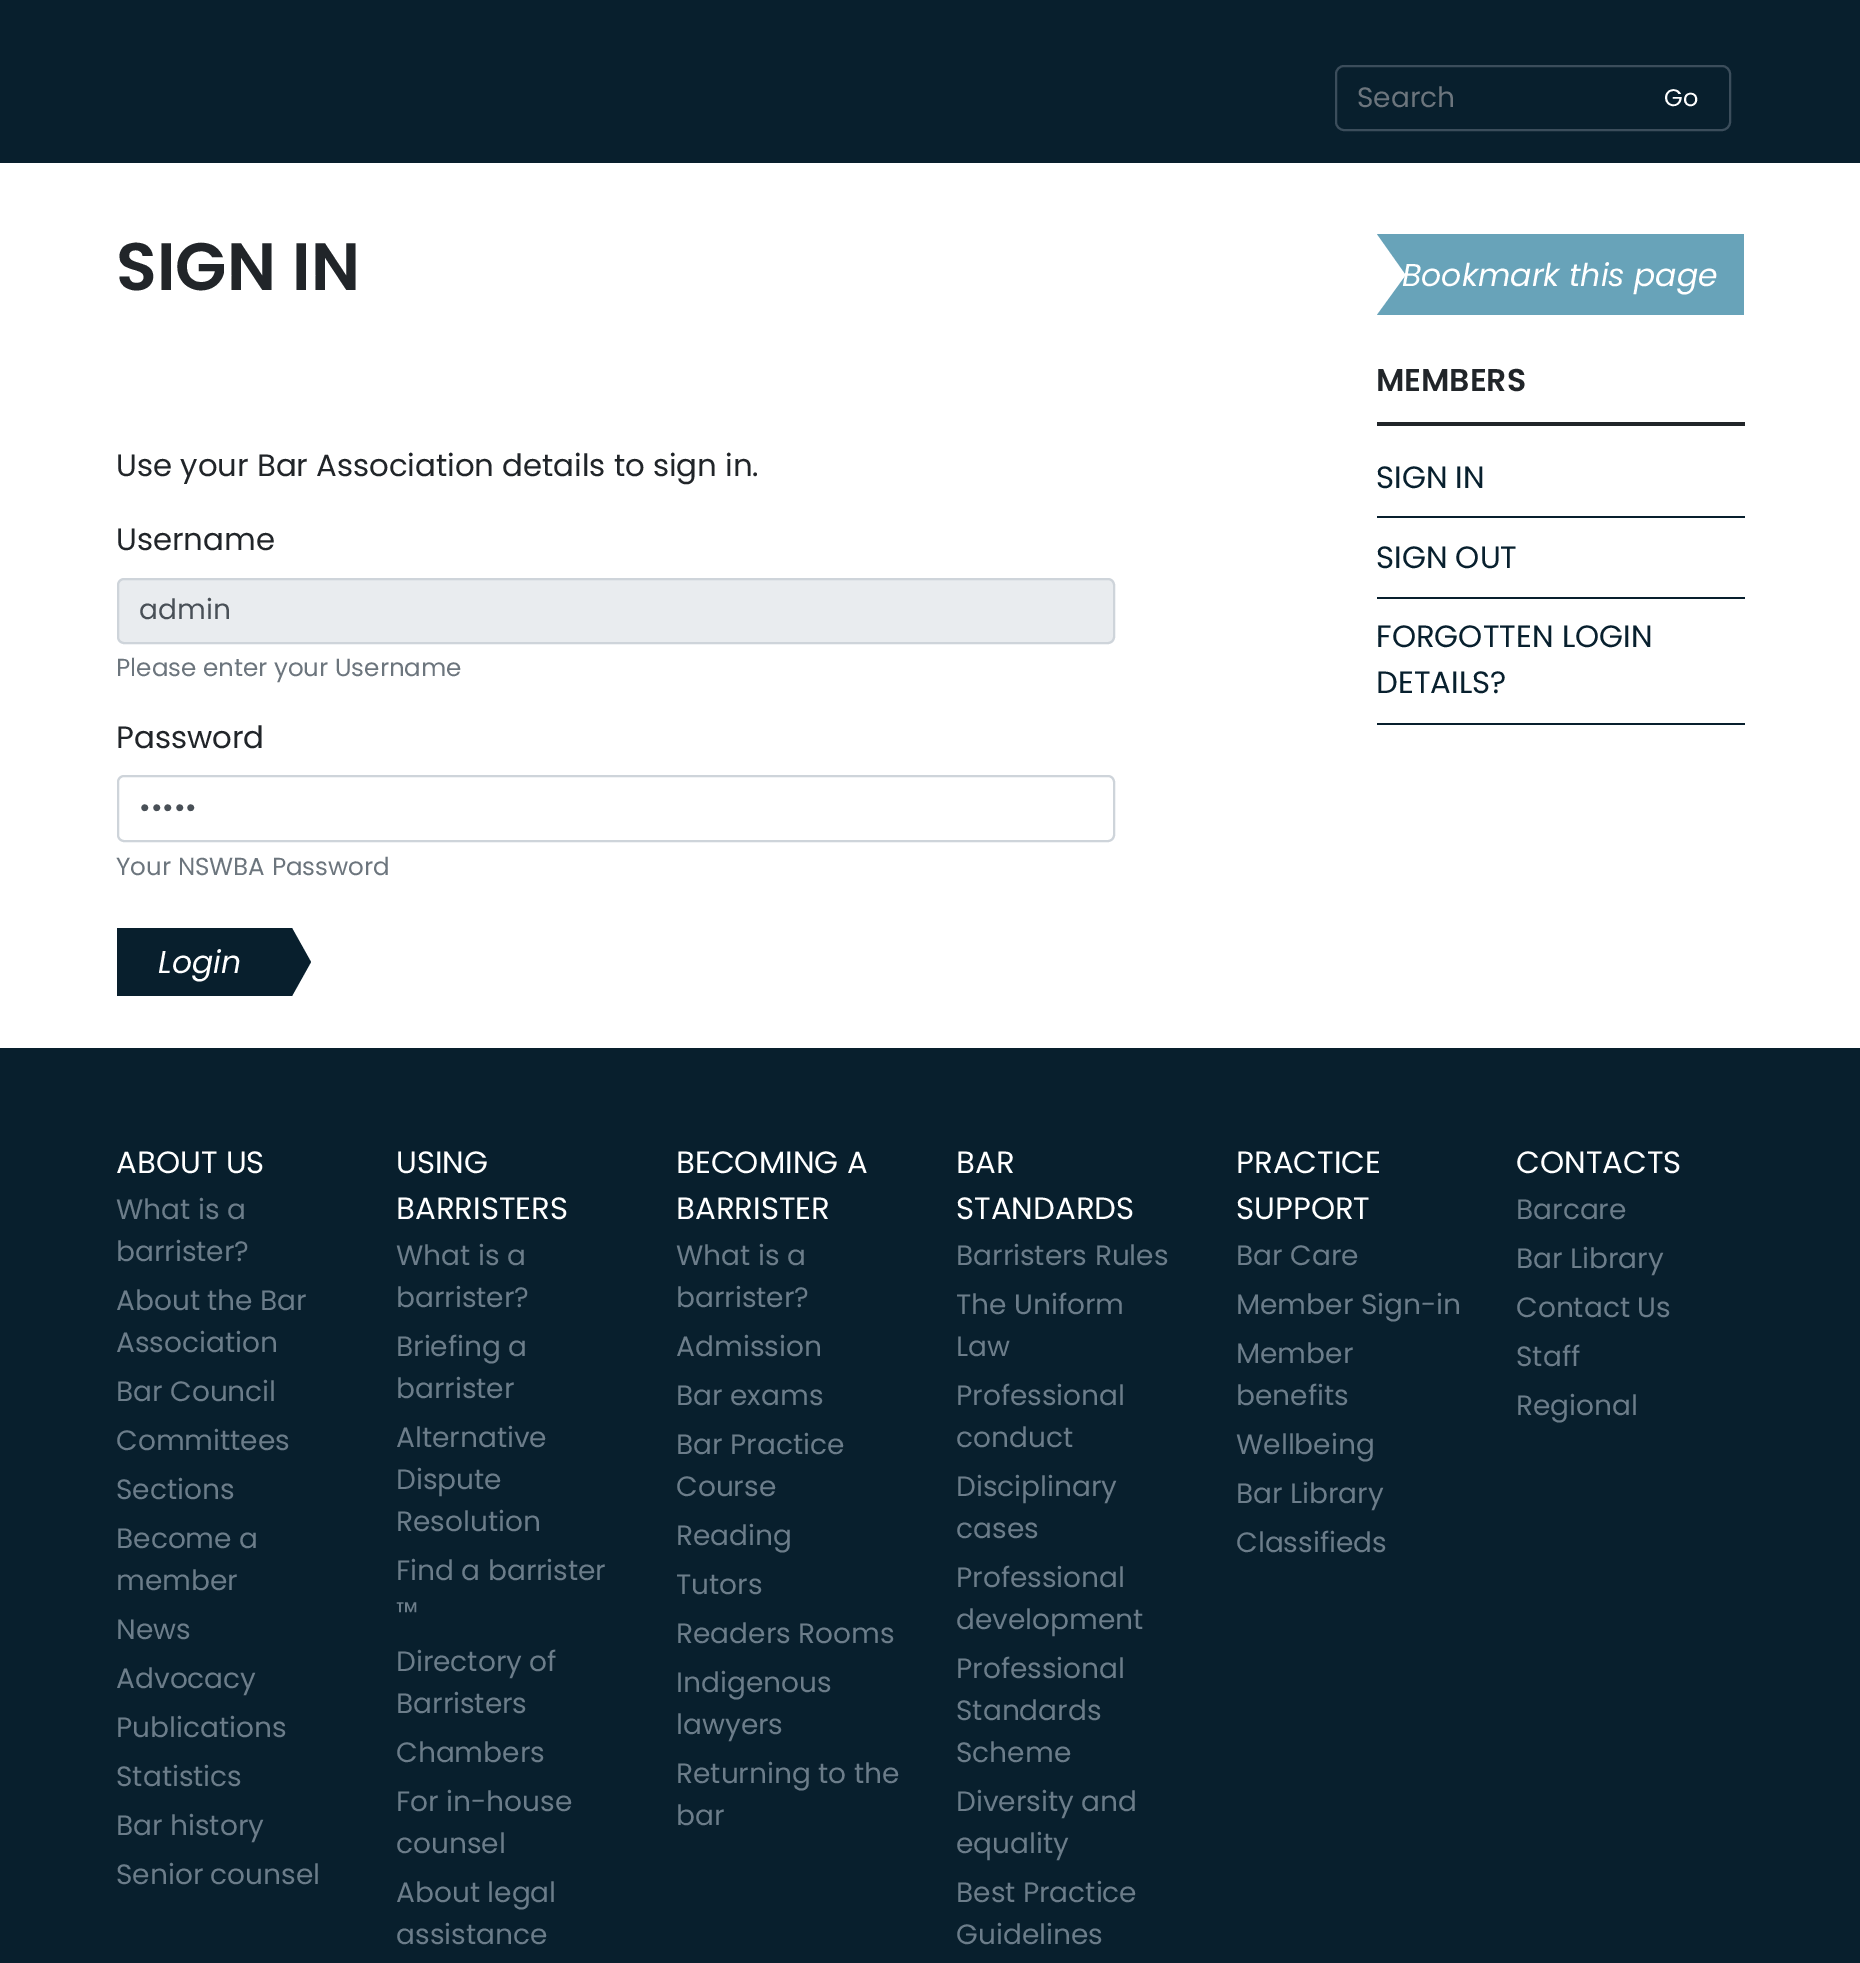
%!PS-Adobe-3.0
%%BoundingBox: 0 0 1860 1963
%%LanguageLevel: 3
%%Pages: 1
%%EndComments
%%BeginProlog
/setink { 3 { 255 div 3 1 roll } repeat setrgbcolor } def
/usefont { [ exch dup neg 0 0 3 -1 roll 0 0 ] selectfont } def
/drawtext { setink usefont moveto show } def
/fillbox { setink rectfill } def
/rrect { 5 dict begin { /r /h /w /y /x } { exch def } forall
  x r add y moveto x w add y 2 copy h add r arct x w add y h add x 1 index r arct
  x y h add x y r arct x y 2 copy exch w add exch r arct closepath end } def
%%EndProlog
%%BeginSetup
<< /PageSize [1860 1963] >> setpagedevice
%%EndSetup
%%Page: 1 1
0 1963 translate 1 -1 scale
4 setmiterlimit
0 0 1860 1963 255 255 255 fillbox
0 0 1860 163 8 31 45 fillbox
59 77 91 setink
2 setlinewidth
1336 66 394 64 8 rrect stroke
(Search) 1357 107 /Poppins-Regular 28 108 117 125 drawtext
(Go) 1664 106 /Poppins-Regular 24 255 255 255 drawtext
(SIGN IN) 116 290 /Poppins-SemiBold 67 33 37 41 drawtext
(Use your Bar Association details to sign in.) 116 476 /Poppins-Regular 30.8 33 37 41 drawtext
(Username) 116 550 /Poppins-Regular 30.8 33 37 41 drawtext
233 236 239 setink
118 579 996 64 6 rrect gsave fill grestore
206 212 218 setink
stroke
(admin) 139 619 /Poppins-Regular 28 73 80 87 drawtext
(Please enter your Username) 116 676 /Poppins-Regular 24.6 108 117 125 drawtext
(Password) 116 748 /Poppins-Regular 30.8 33 37 41 drawtext
206 212 218 setink
118 776 996 65 6 rrect stroke
(•••••) 139 817 /Poppins-Regular 28 73 80 87 drawtext
(Your NSWBA Password) 116 875 /Poppins-Regular 24.6 108 117 125 drawtext
8 31 45 setink
117 928 moveto 292 928 lineto 311 962 lineto 292 996 lineto 117 996 lineto closepath fill
(Login) 158 973 /Poppins-Italic 31.5 255 255 255 drawtext
104 163 185 setink
1744 234 moveto 1744 315 lineto 1377 315 lineto 1406 275 lineto 1377 234 lineto closepath fill
gsave
1744 233.5 moveto 1744 316 lineto 1376.5 316 lineto 1406 274.5 lineto 1376.5 233.5 lineto closepath clip newpath
(Bookmark this page) 1402 286 /Poppins-Italic 31.5 255 255 255 drawtext
grestore
1377 422 368 4 33 37 41 fillbox
(MEMBERS) 1376 391 /Poppins-SemiBold 31.5 33 37 41 drawtext
1377 516 368 2 8 31 45 fillbox
(SIGN IN) 1376 488 /Poppins-Regular 30.8 8 32 46 drawtext
1377 597 368 2 8 31 45 fillbox
(SIGN OUT) 1376 568 /Poppins-Regular 30.8 8 32 46 drawtext
1377 723 368 2 8 31 45 fillbox
(FORGOTTEN LOGIN) 1376 647 /Poppins-Regular 30.8 8 32 46 drawtext
(DETAILS?) 1376 693 /Poppins-Regular 30.8 8 32 46 drawtext
0 1048 1860 915 8 31 45 fillbox
(ABOUT US) 116 1173 /Poppins-Regular 30.8 255 255 255 drawtext
(What is a) 116 1219 /Poppins-Regular 28 108 125 138 drawtext
(barrister?) 116 1261 /Poppins-Regular 28 108 125 138 drawtext
(About the Bar) 116 1310 /Poppins-Regular 28 108 125 138 drawtext
(Association) 116 1352 /Poppins-Regular 28 108 125 138 drawtext
(Bar Council) 116 1401 /Poppins-Regular 28 108 125 138 drawtext
(Committees) 116 1450 /Poppins-Regular 28 108 125 138 drawtext
(Sections) 116 1499 /Poppins-Regular 28 108 125 138 drawtext
(Become a) 116 1548 /Poppins-Regular 28 108 125 138 drawtext
(member) 116 1590 /Poppins-Regular 28 108 125 138 drawtext
(News) 116 1639 /Poppins-Regular 28 108 125 138 drawtext
(Advocacy) 116 1688 /Poppins-Regular 28 108 125 138 drawtext
(Publications) 116 1737 /Poppins-Regular 28 108 125 138 drawtext
(Statistics) 116 1786 /Poppins-Regular 28 108 125 138 drawtext
(Bar history) 116 1835 /Poppins-Regular 28 108 125 138 drawtext
(Senior counsel) 116 1884 /Poppins-Regular 28 108 125 138 drawtext
(USING) 396 1173 /Poppins-Regular 30.8 255 255 255 drawtext
(BARRISTERS) 396 1219 /Poppins-Regular 30.8 255 255 255 drawtext
(What is a) 396 1265 /Poppins-Regular 28 108 125 138 drawtext
(barrister?) 396 1307 /Poppins-Regular 28 108 125 138 drawtext
(Briefing a) 396 1356 /Poppins-Regular 28 108 125 138 drawtext
(barrister) 396 1398 /Poppins-Regular 28 108 125 138 drawtext
(Alternative) 396 1447 /Poppins-Regular 28 108 125 138 drawtext
(Dispute) 396 1489 /Poppins-Regular 28 108 125 138 drawtext
(Resolution) 396 1531 /Poppins-Regular 28 108 125 138 drawtext
(Find a barrister) 396 1580 /Poppins-Regular 28 108 125 138 drawtext
(™) 396 1622 /Poppins-Regular 28 108 125 138 drawtext
(Directory of) 396 1671 /Poppins-Regular 28 108 125 138 drawtext
(Barristers) 396 1713 /Poppins-Regular 28 108 125 138 drawtext
(Chambers) 396 1762 /Poppins-Regular 28 108 125 138 drawtext
(For in-house) 396 1811 /Poppins-Regular 28 108 125 138 drawtext
(counsel) 396 1853 /Poppins-Regular 28 108 125 138 drawtext
(About legal) 396 1902 /Poppins-Regular 28 108 125 138 drawtext
(assistance) 396 1944 /Poppins-Regular 28 108 125 138 drawtext
(BECOMING A) 676 1173 /Poppins-Regular 30.8 255 255 255 drawtext
(BARRISTER) 676 1219 /Poppins-Regular 30.8 255 255 255 drawtext
(What is a) 676 1265 /Poppins-Regular 28 108 125 138 drawtext
(barrister?) 676 1307 /Poppins-Regular 28 108 125 138 drawtext
(Admission) 676 1356 /Poppins-Regular 28 108 125 138 drawtext
(Bar exams) 676 1405 /Poppins-Regular 28 108 125 138 drawtext
(Bar Practice) 676 1454 /Poppins-Regular 28 108 125 138 drawtext
(Course) 676 1496 /Poppins-Regular 28 108 125 138 drawtext
(Reading) 676 1545 /Poppins-Regular 28 108 125 138 drawtext
(Tutors) 676 1594 /Poppins-Regular 28 108 125 138 drawtext
(Readers Rooms) 676 1643 /Poppins-Regular 28 108 125 138 drawtext
(Indigenous) 676 1692 /Poppins-Regular 28 108 125 138 drawtext
(lawyers) 676 1734 /Poppins-Regular 28 108 125 138 drawtext
(Returning to the) 676 1783 /Poppins-Regular 28 108 125 138 drawtext
(bar) 676 1825 /Poppins-Regular 28 108 125 138 drawtext
(BAR) 956 1173 /Poppins-Regular 30.8 255 255 255 drawtext
(STANDARDS) 956 1219 /Poppins-Regular 30.8 255 255 255 drawtext
(Barristers Rules) 956 1265 /Poppins-Regular 28 108 125 138 drawtext
(The Uniform) 956 1314 /Poppins-Regular 28 108 125 138 drawtext
(Law) 956 1356 /Poppins-Regular 28 108 125 138 drawtext
(Professional) 956 1405 /Poppins-Regular 28 108 125 138 drawtext
(conduct) 956 1447 /Poppins-Regular 28 108 125 138 drawtext
(Disciplinary) 956 1496 /Poppins-Regular 28 108 125 138 drawtext
(cases) 956 1538 /Poppins-Regular 28 108 125 138 drawtext
(Professional) 956 1587 /Poppins-Regular 28 108 125 138 drawtext
(development) 956 1629 /Poppins-Regular 28 108 125 138 drawtext
(Professional) 956 1678 /Poppins-Regular 28 108 125 138 drawtext
(Standards) 956 1720 /Poppins-Regular 28 108 125 138 drawtext
(Scheme) 956 1762 /Poppins-Regular 28 108 125 138 drawtext
(Diversity and) 956 1811 /Poppins-Regular 28 108 125 138 drawtext
(equality) 956 1853 /Poppins-Regular 28 108 125 138 drawtext
(Best Practice) 956 1902 /Poppins-Regular 28 108 125 138 drawtext
(Guidelines) 956 1944 /Poppins-Regular 28 108 125 138 drawtext
(PRACTICE) 1236 1173 /Poppins-Regular 30.8 255 255 255 drawtext
(SUPPORT) 1236 1219 /Poppins-Regular 30.8 255 255 255 drawtext
(Bar Care) 1236 1265 /Poppins-Regular 28 108 125 138 drawtext
(Member Sign-in) 1236 1314 /Poppins-Regular 28 108 125 138 drawtext
(Member) 1236 1363 /Poppins-Regular 28 108 125 138 drawtext
(benefits) 1236 1405 /Poppins-Regular 28 108 125 138 drawtext
(Wellbeing) 1236 1454 /Poppins-Regular 28 108 125 138 drawtext
(Bar Library) 1236 1503 /Poppins-Regular 28 108 125 138 drawtext
(Classifieds) 1236 1552 /Poppins-Regular 28 108 125 138 drawtext
(CONTACTS) 1516 1173 /Poppins-Regular 30.8 255 255 255 drawtext
(Barcare) 1516 1219 /Poppins-Regular 28 108 125 138 drawtext
(Bar Library) 1516 1268 /Poppins-Regular 28 108 125 138 drawtext
(Contact Us) 1516 1317 /Poppins-Regular 28 108 125 138 drawtext
(Staff) 1516 1366 /Poppins-Regular 28 108 125 138 drawtext
(Regional) 1516 1415 /Poppins-Regular 28 108 125 138 drawtext
showpage
%%EOF
